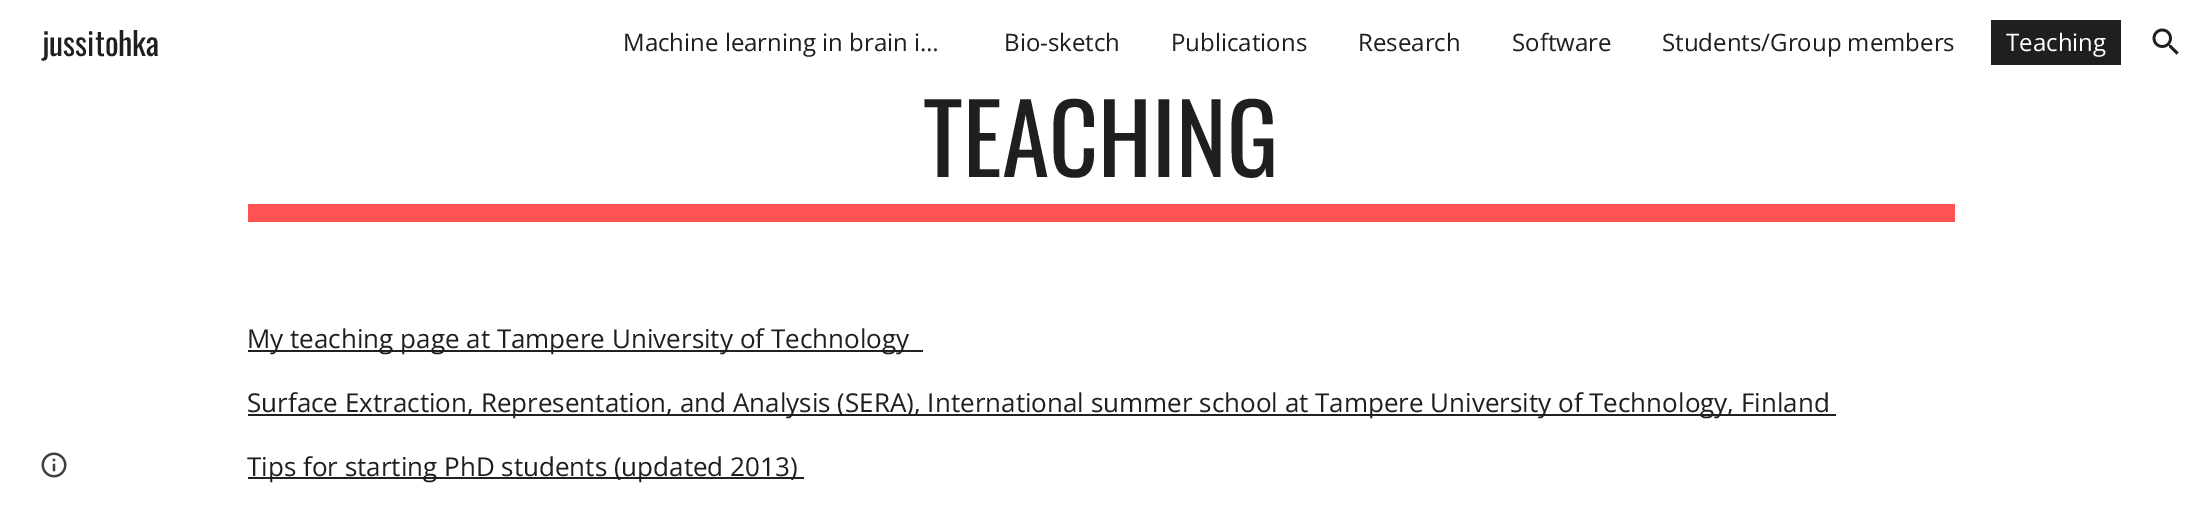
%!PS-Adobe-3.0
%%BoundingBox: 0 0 2201 515
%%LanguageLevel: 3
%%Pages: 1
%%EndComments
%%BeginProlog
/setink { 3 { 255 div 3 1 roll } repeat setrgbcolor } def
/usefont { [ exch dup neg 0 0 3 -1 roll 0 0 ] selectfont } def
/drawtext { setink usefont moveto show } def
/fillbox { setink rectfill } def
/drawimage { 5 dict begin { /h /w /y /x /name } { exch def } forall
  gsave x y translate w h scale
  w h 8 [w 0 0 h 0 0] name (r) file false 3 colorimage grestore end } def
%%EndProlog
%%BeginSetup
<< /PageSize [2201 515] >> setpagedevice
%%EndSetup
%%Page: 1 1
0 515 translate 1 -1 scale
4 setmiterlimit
0 0 2201 515 255 255 255 fillbox
(jussitohka) 42 56 /Oswald-Regular 32 31 31 31 drawtext
(Machine learning in brain i…) 623 51 /OpenSans-Regular 24 31 31 31 drawtext
(Bio-sketch) 1004 51 /OpenSans-Regular 24 31 31 31 drawtext
(Publications) 1171 51 /OpenSans-Regular 24 31 31 31 drawtext
(Research) 1358 51 /OpenSans-Regular 24 31 31 31 drawtext
(Software) 1512 51 /OpenSans-Regular 24 31 31 31 drawtext
(Students/Group members) 1662 51 /OpenSans-Regular 24 31 31 31 drawtext
1991 20 130 45 31 31 31 fillbox
(Teaching) 2006 51 /OpenSans-Regular 24 255 255 255 drawtext
(assets/img1.rgb) 2152 28 27 27 drawimage
(assets/img2.rgb) 41 452 26 26 drawimage
(TEACHING) 923 177 /Oswald-Regular 96 31 31 31 drawtext
248 204 1707 18 255 82 82 fillbox
248 350 675 2 33 33 33 fillbox
(My teaching page at Tampere University of Technology) 247 348 /OpenSans-Regular 26 31 31 31 drawtext
248 414 1588 2 33 33 33 fillbox
(Surface Extraction, Representation, and Analysis \(SERA\), International summer school at Tampere University of Technology, Finland) 247 412 /OpenSans-Regular 26 31 31 31 drawtext
248 477 556 2 33 33 33 fillbox
(Tips for starting PhD students \(updated 2013\)) 247 476 /OpenSans-Regular 26 31 31 31 drawtext
showpage
%%EOF
